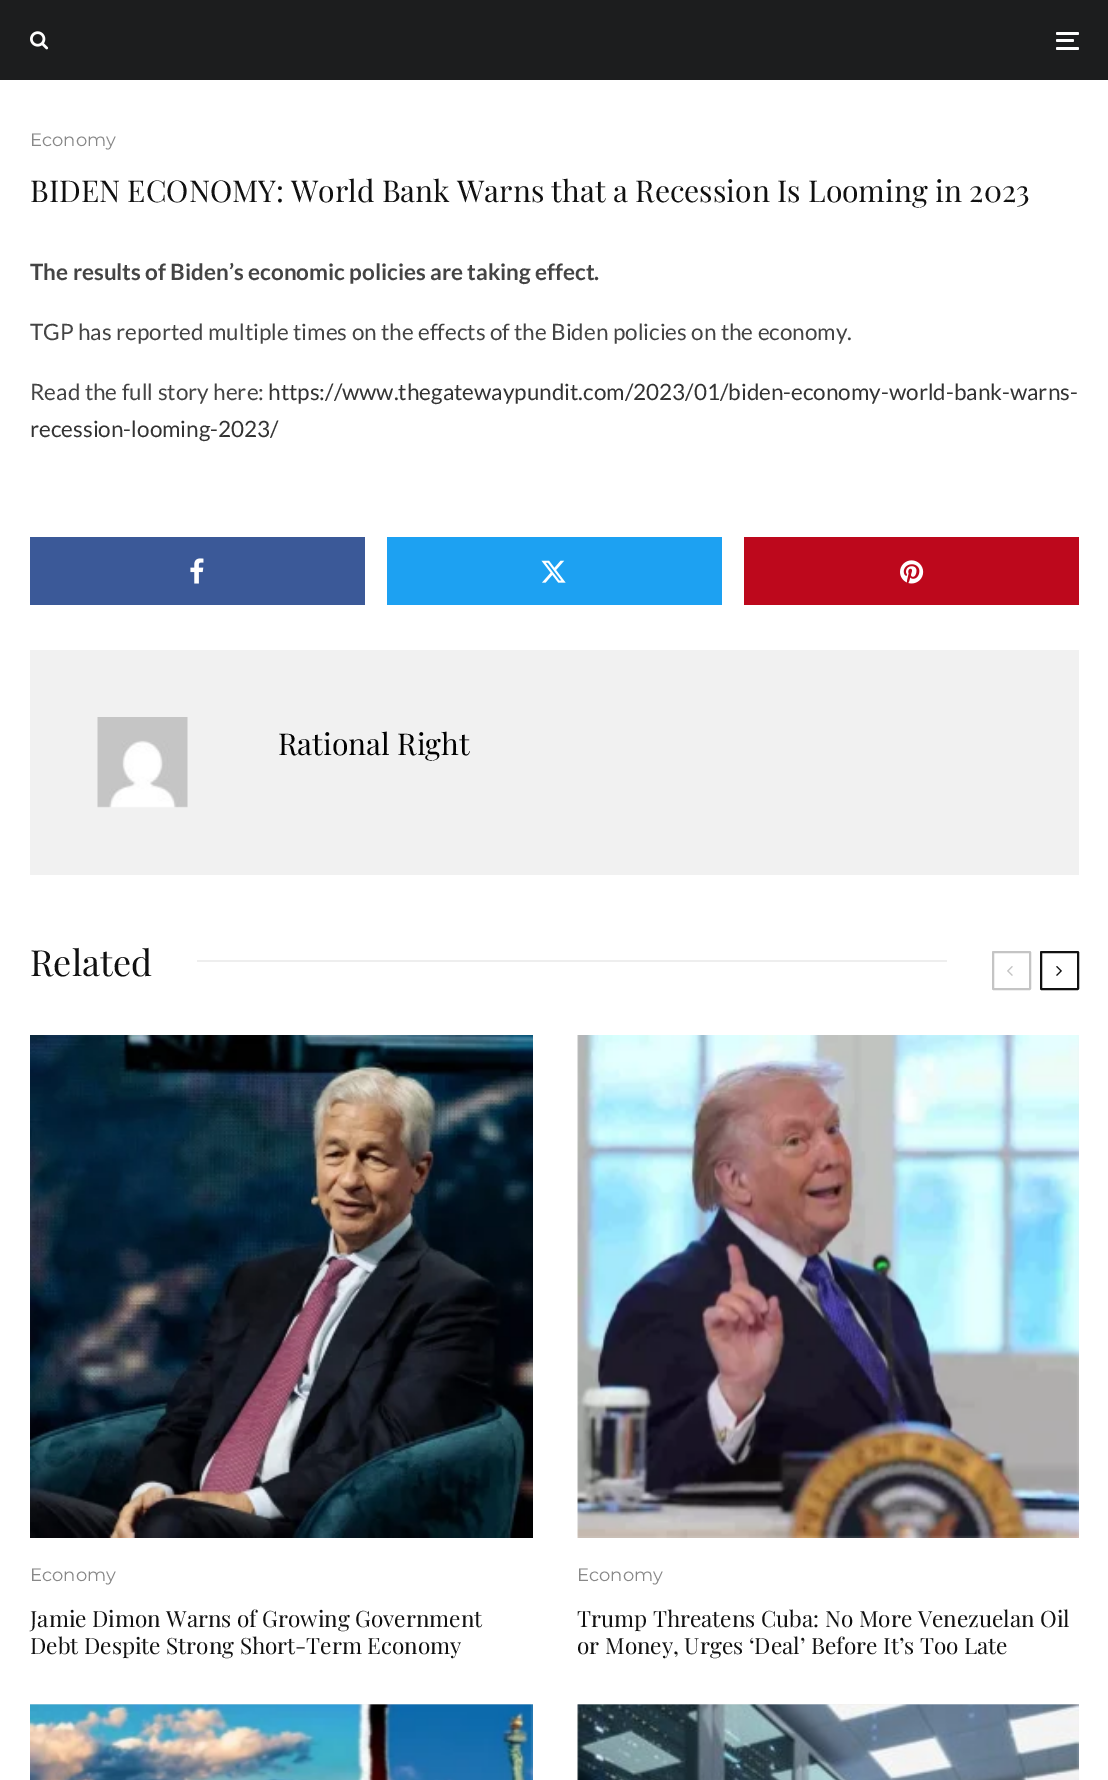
%!PS-Adobe-3.0
%%BoundingBox: 0 0 1108 1780
%%LanguageLevel: 3
%%Pages: 1
%%EndComments
%%BeginProlog
/setink { 3 { 255 div 3 1 roll } repeat setrgbcolor } def
/usefont { [ exch dup neg 0 0 3 -1 roll 0 0 ] selectfont } def
/drawtext { setink usefont moveto show } def
/fillbox { setink rectfill } def
/rrect { 5 dict begin { /r /h /w /y /x } { exch def } forall
  x r add y moveto x w add y 2 copy h add r arct x w add y h add x 1 index r arct
  x y h add x y r arct x y 2 copy exch w add exch r arct closepath end } def
/drawimage { 5 dict begin { /h /w /y /x /name } { exch def } forall
  gsave x y translate w h scale
  w h 8 [w 0 0 h 0 0] name (r) file false 3 colorimage grestore end } def
%%EndProlog
%%BeginSetup
<< /PageSize [1108 1780] >> setpagedevice
%%EndSetup
%%Page: 1 1
0 1780 translate 1 -1 scale
4 setmiterlimit
0 0 1108 1780 255 255 255 fillbox
0 0 1108 80 28 29 30 fillbox
(assets/img1.rgb) 30 31 19 19 drawimage
255 255 255 setink
1056 39 18 3 1.5 rrect fill
1056 32 23 3 1.5 rrect fill
1056 47 23 3 1.5 rrect fill
(Economy) 30 146 /Montserrat-Regular 18 136 136 136 drawtext
(BIDEN ECONOMY: World Bank Warns that a Recession Is Looming in 2023) 30 202 /PlayfairDisplay-Regular 30 17 17 17 drawtext
(The results of Biden’s economic policies are taking effect.) 30 280 /Lato-Bold 22.5 68 68 68 drawtext
(TGP has reported multiple times on the effects of the Biden policies on the economy.) 30 340 /Lato-Regular 22.5 68 68 68 drawtext
(Read the full story here:) 30 400 /Lato-Regular 22.5 68 68 68 drawtext
(https://www.thegatewaypundit.com/2023/01/biden-economy-world-bank-warns-) 268 400 /Lato-Regular 22.5 51 51 51 drawtext
(recession-looming-2023/) 30 437 /Lato-Regular 22.5 51 51 51 drawtext
30 537 335 68 59 89 152 fillbox
(assets/img2.rgb) 190 558 14 26 drawimage
387 537 335 68 29 161 242 fillbox
(assets/img3.rgb) 541 560 25 23 drawimage
744 537 335 68 189 8 28 fillbox
(assets/img4.rgb) 900 560 24 24 drawimage
30 650 1049 225 241 241 241 fillbox
(assets/img5.rgb) 97 717 91 91 drawimage
(Rational Right) 278 755 /PlayfairDisplay-Regular 30 0 0 0 drawtext
(Related) 30 976 /PlayfairDisplay-Regular 36 17 17 17 drawtext
197 960 750 2 238 238 238 fillbox
196 196 196 setink
2 setlinewidth
993 952 37 37 0.5 rrect stroke
(assets/img6.rgb) 1007 966 6 10 drawimage
17 17 17 setink
1041 952 37 37 0.5 rrect stroke
(assets/img7.rgb) 1056 966 6 10 drawimage
(assets/img8.rgb) 30 1035 503 503 drawimage
(Economy) 30 1581 /Montserrat-Regular 18 136 136 136 drawtext
(Jamie Dimon Warns of Growing Government) 30 1627 /PlayfairDisplay-Regular 22.5 17 17 17 drawtext
(Debt Despite Strong Short-Term Economy) 30 1654 /PlayfairDisplay-Regular 22.5 17 17 17 drawtext
(assets/img9.rgb) 577 1035 502 503 drawimage
(Economy) 577 1581 /Montserrat-Regular 18 136 136 136 drawtext
(Trump Threatens Cuba: No More Venezuelan Oil) 577 1627 /PlayfairDisplay-Regular 22.5 17 17 17 drawtext
(or Money, Urges ‘Deal’ Before It’s Too Late) 577 1654 /PlayfairDisplay-Regular 22.5 17 17 17 drawtext
30 1704 503 76 238 238 238 fillbox
(assets/img10.rgb) 30 1704 503 76 drawimage
578 1704 501 76 238 238 238 fillbox
(assets/img11.rgb) 577 1704 502 76 drawimage
showpage
%%EOF
